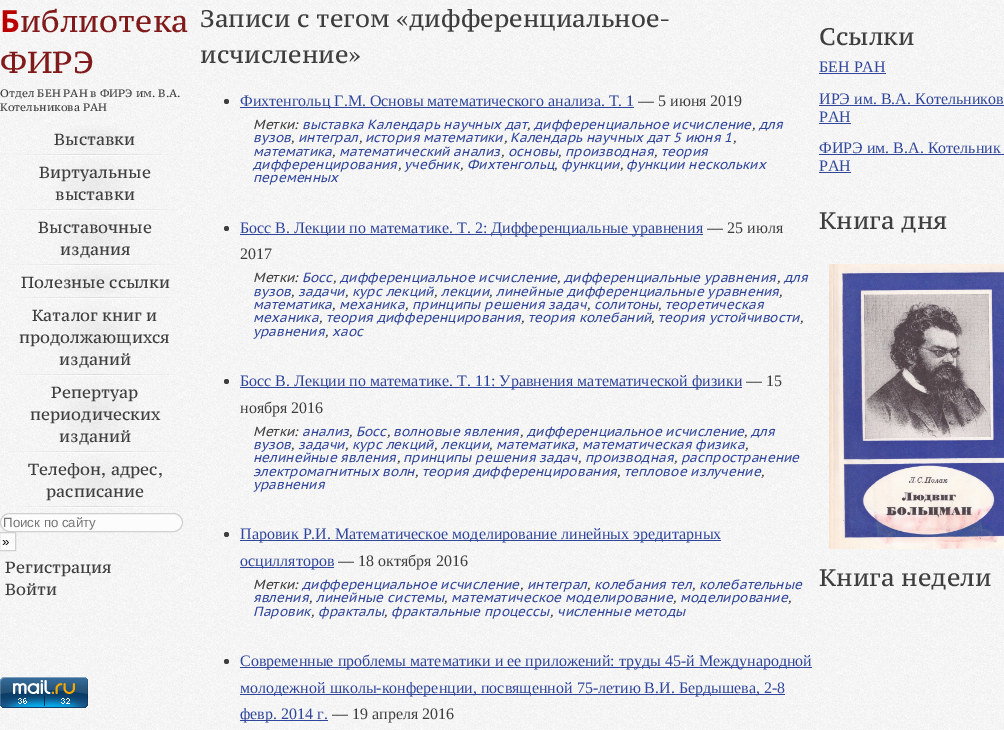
%!PS-Adobe-3.0
%%BoundingBox: 0 0 1004 730
%%LanguageLevel: 3
%%Pages: 1
%%EndComments
%%BeginProlog
/setink { 3 { 255 div 3 1 roll } repeat setrgbcolor } def
/usefont { [ exch dup neg 0 0 3 -1 roll 0 0 ] selectfont } def
/drawtext { setink usefont moveto show } def
/fillbox { setink rectfill } def
/disc { newpath 0 360 arc closepath } def
/rrect { 5 dict begin { /r /h /w /y /x } { exch def } forall
  x r add y moveto x w add y 2 copy h add r arct x w add y h add x 1 index r arct
  x y h add x y r arct x y 2 copy exch w add exch r arct closepath end } def
/drawimage { 5 dict begin { /h /w /y /x /name } { exch def } forall
  gsave x y translate w h scale
  w h 8 [w 0 0 h 0 0] name (r) file false 3 colorimage grestore end } def
%%EndProlog
%%BeginSetup
<< /PageSize [1004 730] >> setpagedevice
%%EndSetup
%%Page: 1 1
0 730 translate 1 -1 scale
4 setmiterlimit
0 0 1004 730 255 255 255 fillbox
(assets/img1.rgb) 0 0 1004 730 drawimage
(Б) 0 32 /NotoSans-Bold 30.5 187 0 0 drawtext
(иблиотека) 20 32 /PTSerifCaption-Regular 30.5 129 26 26 drawtext
(ФИРЭ) 0 73 /PTSerifCaption-Regular 30.5 129 26 26 drawtext
(Отдел БЕН РАН в ФИРЭ им. В.А.) 0 97 /PTSerifCaption-Regular 10.75 62 62 62 drawtext
(Котельникова РАН) 0 111 /PTSerifCaption-Regular 10.75 62 62 62 drawtext
(Выставки) 54 145 /PTSerifCaption-Regular 16 62 62 62 drawtext
(Виртуальные) 39 178 /PTSerifCaption-Regular 16 62 62 62 drawtext
(выставки) 55 200 /PTSerifCaption-Regular 16 62 62 62 drawtext
(Выставочные) 38 233 /PTSerifCaption-Regular 16 62 62 62 drawtext
(издания) 60 255 /PTSerifCaption-Regular 16 62 62 62 drawtext
(Полезные ссылки) 21 288 /PTSerifCaption-Regular 16 62 62 62 drawtext
(Каталог книг и) 32 321 /PTSerifCaption-Regular 16 62 62 62 drawtext
(продолжающихся) 19 343 /PTSerifCaption-Regular 16 62 62 62 drawtext
(изданий) 59 365 /PTSerifCaption-Regular 16 62 62 62 drawtext
(Репертуар) 51 398 /PTSerifCaption-Regular 16 62 62 62 drawtext
(периодических) 30 420 /PTSerifCaption-Regular 16 62 62 62 drawtext
(изданий) 59 442 /PTSerifCaption-Regular 16 62 62 62 drawtext
(Телефон, адрес,) 28 475 /PTSerifCaption-Regular 16 62 62 62 drawtext
(расписание) 46 497 /PTSerifCaption-Regular 16 62 62 62 drawtext
252 252 252 setink
0.5 513.5 182 18 9 rrect gsave fill grestore
208 208 208 setink
stroke
(Поиск по сайту) 3 527 /LiberationSans-Regular 13.3 117 117 117 drawtext
252 252 252 setink
-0.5 532.5 moveto 15.5 532.5 lineto 15.5 550.5 lineto -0.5 550.5 lineto closepath gsave fill grestore
208 208 208 setink
stroke
(») 2 546 /LiberationSans-Regular 13.3 0 0 0 drawtext
(Регистрация) 5 573 /PTSerifCaption-Regular 16 62 62 62 drawtext
(Войти) 5 595 /PTSerifCaption-Regular 16 62 62 62 drawtext
(assets/img2.rgb) 0 677 88 31 drawimage
(Записи с тегом «дифференциальное-) 200 27 /PTSerifCaption-Regular 24 62 62 62 drawtext
(исчисление») 200 63 /PTSerifCaption-Regular 24 62 62 62 drawtext
226.5 101.5 2.5 disc fill
240 107 394 1 48 70 155 fillbox
(Фихтенгольц Г.М. Основы математического анализа. Т. 1) 240 106 /LiberationSerif-Regular 16 48 70 155 drawtext
(— 5 июня 2019) 638 106 /LiberationSerif-Regular 16 62 62 62 drawtext
(Метки:) 253 129 /PTSansCaption-Italic 13.3 62 62 62 drawtext
(выставка Календарь научных дат) 302 129 /PTSansCaption-Italic 13.3 48 70 155 drawtext
(дифференциальное исчисление) 534 129 /PTSansCaption-Italic 13.3 48 70 155 drawtext
(для) 759 129 /PTSansCaption-Italic 13.3 48 70 155 drawtext
(,) 527 129 /PTSansCaption-Italic 13.3 62 62 62 drawtext
(,) 752 129 /PTSansCaption-Italic 13.3 62 62 62 drawtext
(вузов) 253 142 /PTSansCaption-Italic 13.3 48 70 155 drawtext
(,) 291 142 /PTSansCaption-Italic 13.3 62 62 62 drawtext
(интеграл) 298 142 /PTSansCaption-Italic 13.3 48 70 155 drawtext
(история математики) 365 142 /PTSansCaption-Italic 13.3 48 70 155 drawtext
(Календарь научных дат 5 июня 1) 510 142 /PTSansCaption-Italic 13.3 48 70 155 drawtext
(,) 359 142 /PTSansCaption-Italic 13.3 62 62 62 drawtext
(,) 504 142 /PTSansCaption-Italic 13.3 62 62 62 drawtext
(,) 733 142 /PTSansCaption-Italic 13.3 62 62 62 drawtext
(математика) 253 156 /PTSansCaption-Italic 13.3 48 70 155 drawtext
(,) 332 156 /PTSansCaption-Italic 13.3 62 62 62 drawtext
(математический анализ) 339 156 /PTSansCaption-Italic 13.3 48 70 155 drawtext
(,) 501 156 /PTSansCaption-Italic 13.3 62 62 62 drawtext
(основы) 508 156 /PTSansCaption-Italic 13.3 48 70 155 drawtext
(,) 558 156 /PTSansCaption-Italic 13.3 62 62 62 drawtext
(производная) 565 156 /PTSansCaption-Italic 13.3 48 70 155 drawtext
(,) 654 156 /PTSansCaption-Italic 13.3 62 62 62 drawtext
(теория) 661 156 /PTSansCaption-Italic 13.3 48 70 155 drawtext
(дифференцирования) 253 169 /PTSansCaption-Italic 13.3 48 70 155 drawtext
(учебник) 404 169 /PTSansCaption-Italic 13.3 48 70 155 drawtext
(Фихтенгольц) 467 169 /PTSansCaption-Italic 13.3 48 70 155 drawtext
(функции) 561 169 /PTSansCaption-Italic 13.3 48 70 155 drawtext
(функции нескольких) 626 169 /PTSansCaption-Italic 13.3 48 70 155 drawtext
(,) 398 169 /PTSansCaption-Italic 13.3 62 62 62 drawtext
(,) 460 169 /PTSansCaption-Italic 13.3 62 62 62 drawtext
(,) 554 169 /PTSansCaption-Italic 13.3 62 62 62 drawtext
(,) 620 169 /PTSansCaption-Italic 13.3 62 62 62 drawtext
(переменных) 253 182 /PTSansCaption-Italic 13.3 48 70 155 drawtext
62 62 62 setink
226.5 228.5 2.5 disc fill
240 234 463 1 48 70 155 fillbox
(Босс В. Лекции по математике. Т. 2: Дифференциальные уравнения) 240 233 /LiberationSerif-Regular 16 48 70 155 drawtext
(— 25 июля) 707 233 /LiberationSerif-Regular 16 62 62 62 drawtext
(2017) 240 259 /LiberationSerif-Regular 16 62 62 62 drawtext
(Метки:) 253 282 /PTSansCaption-Italic 13.3 62 62 62 drawtext
(Босс) 302 282 /PTSansCaption-Italic 13.3 48 70 155 drawtext
(,) 333 282 /PTSansCaption-Italic 13.3 62 62 62 drawtext
(дифференциальное исчисление) 340 282 /PTSansCaption-Italic 13.3 48 70 155 drawtext
(,) 557 282 /PTSansCaption-Italic 13.3 62 62 62 drawtext
(дифференциальные уравнения) 564 282 /PTSansCaption-Italic 13.3 48 70 155 drawtext
(,) 777 282 /PTSansCaption-Italic 13.3 62 62 62 drawtext
(для) 784 282 /PTSansCaption-Italic 13.3 48 70 155 drawtext
(вузов) 253 296 /PTSansCaption-Italic 13.3 48 70 155 drawtext
(,) 291 296 /PTSansCaption-Italic 13.3 62 62 62 drawtext
(задачи) 298 296 /PTSansCaption-Italic 13.3 48 70 155 drawtext
(,) 345 296 /PTSansCaption-Italic 13.3 62 62 62 drawtext
(курс лекций) 352 296 /PTSansCaption-Italic 13.3 48 70 155 drawtext
(,) 434 296 /PTSansCaption-Italic 13.3 62 62 62 drawtext
(лекции) 441 296 /PTSansCaption-Italic 13.3 48 70 155 drawtext
(,) 489 296 /PTSansCaption-Italic 13.3 62 62 62 drawtext
(линейные дифференциальные уравнения) 496 296 /PTSansCaption-Italic 13.3 48 70 155 drawtext
(,) 779 296 /PTSansCaption-Italic 13.3 62 62 62 drawtext
(математика) 253 309 /PTSansCaption-Italic 13.3 48 70 155 drawtext
(,) 332 309 /PTSansCaption-Italic 13.3 62 62 62 drawtext
(механика) 339 309 /PTSansCaption-Italic 13.3 48 70 155 drawtext
(,) 405 309 /PTSansCaption-Italic 13.3 62 62 62 drawtext
(принципы решения задач) 412 309 /PTSansCaption-Italic 13.3 48 70 155 drawtext
(,) 587 309 /PTSansCaption-Italic 13.3 62 62 62 drawtext
(солитоны) 594 309 /PTSansCaption-Italic 13.3 48 70 155 drawtext
(,) 658 309 /PTSansCaption-Italic 13.3 62 62 62 drawtext
(теоретическая) 665 309 /PTSansCaption-Italic 13.3 48 70 155 drawtext
(механика) 253 322 /PTSansCaption-Italic 13.3 48 70 155 drawtext
(,) 319 322 /PTSansCaption-Italic 13.3 62 62 62 drawtext
(теория дифференцирования) 326 322 /PTSansCaption-Italic 13.3 48 70 155 drawtext
(,) 521 322 /PTSansCaption-Italic 13.3 62 62 62 drawtext
(теория колебаний) 528 322 /PTSansCaption-Italic 13.3 48 70 155 drawtext
(,) 651 322 /PTSansCaption-Italic 13.3 62 62 62 drawtext
(теория устойчивости) 658 322 /PTSansCaption-Italic 13.3 48 70 155 drawtext
(,) 800 322 /PTSansCaption-Italic 13.3 62 62 62 drawtext
(уравнения) 253 336 /PTSansCaption-Italic 13.3 48 70 155 drawtext
(,) 325 336 /PTSansCaption-Italic 13.3 62 62 62 drawtext
(хаос) 332 336 /PTSansCaption-Italic 13.3 48 70 155 drawtext
62 62 62 setink
226.5 381.5 2.5 disc fill
240 387 502 1 48 70 155 fillbox
(Босс В. Лекции по математике. Т. 11: Уравнения математической физики) 240 386 /LiberationSerif-Regular 16 48 70 155 drawtext
(— 15) 746 386 /LiberationSerif-Regular 16 62 62 62 drawtext
(ноября 2016) 240 413 /LiberationSerif-Regular 16 62 62 62 drawtext
(Метки:) 253 436 /PTSansCaption-Italic 13.3 62 62 62 drawtext
(анализ) 302 436 /PTSansCaption-Italic 13.3 48 70 155 drawtext
(,) 349 436 /PTSansCaption-Italic 13.3 62 62 62 drawtext
(Босс) 356 436 /PTSansCaption-Italic 13.3 48 70 155 drawtext
(волновые явления) 393 436 /PTSansCaption-Italic 13.3 48 70 155 drawtext
(дифференциальное исчисление) 527 436 /PTSansCaption-Italic 13.3 48 70 155 drawtext
(для) 751 436 /PTSansCaption-Italic 13.3 48 70 155 drawtext
(,) 387 436 /PTSansCaption-Italic 13.3 62 62 62 drawtext
(,) 520 436 /PTSansCaption-Italic 13.3 62 62 62 drawtext
(,) 744 436 /PTSansCaption-Italic 13.3 62 62 62 drawtext
(вузов) 253 449 /PTSansCaption-Italic 13.3 48 70 155 drawtext
(,) 291 449 /PTSansCaption-Italic 13.3 62 62 62 drawtext
(задачи) 298 449 /PTSansCaption-Italic 13.3 48 70 155 drawtext
(,) 345 449 /PTSansCaption-Italic 13.3 62 62 62 drawtext
(курс лекций) 352 449 /PTSansCaption-Italic 13.3 48 70 155 drawtext
(,) 434 449 /PTSansCaption-Italic 13.3 62 62 62 drawtext
(лекции) 441 449 /PTSansCaption-Italic 13.3 48 70 155 drawtext
(,) 489 449 /PTSansCaption-Italic 13.3 62 62 62 drawtext
(математика) 496 449 /PTSansCaption-Italic 13.3 48 70 155 drawtext
(,) 575 449 /PTSansCaption-Italic 13.3 62 62 62 drawtext
(математическая физика) 582 449 /PTSansCaption-Italic 13.3 48 70 155 drawtext
(,) 745 449 /PTSansCaption-Italic 13.3 62 62 62 drawtext
(нелинейные явления) 253 462 /PTSansCaption-Italic 13.3 48 70 155 drawtext
(принципы решения задач) 403 462 /PTSansCaption-Italic 13.3 48 70 155 drawtext
(производная) 585 462 /PTSansCaption-Italic 13.3 48 70 155 drawtext
(распространение) 681 462 /PTSansCaption-Italic 13.3 48 70 155 drawtext
(,) 397 462 /PTSansCaption-Italic 13.3 62 62 62 drawtext
(,) 578 462 /PTSansCaption-Italic 13.3 62 62 62 drawtext
(,) 674 462 /PTSansCaption-Italic 13.3 62 62 62 drawtext
(электромагнитных волн) 253 476 /PTSansCaption-Italic 13.3 48 70 155 drawtext
(,) 415 476 /PTSansCaption-Italic 13.3 62 62 62 drawtext
(теория дифференцирования) 422 476 /PTSansCaption-Italic 13.3 48 70 155 drawtext
(,) 617 476 /PTSansCaption-Italic 13.3 62 62 62 drawtext
(тепловое излучение) 624 476 /PTSansCaption-Italic 13.3 48 70 155 drawtext
(,) 761 476 /PTSansCaption-Italic 13.3 62 62 62 drawtext
(уравнения) 253 489 /PTSansCaption-Italic 13.3 48 70 155 drawtext
62 62 62 setink
226.5 534.5 2.5 disc fill
240 540 481 1 48 70 155 fillbox
(Паровик Р.И. Математическое моделирование линейных эредитарных) 240 539 /LiberationSerif-Regular 16 48 70 155 drawtext
240 567 94 1 48 70 155 fillbox
(осцилляторов) 240 566 /LiberationSerif-Regular 16 48 70 155 drawtext
(— 18 октября 2016) 338 566 /LiberationSerif-Regular 16 62 62 62 drawtext
(Метки:) 253 589 /PTSansCaption-Italic 13.3 62 62 62 drawtext
(дифференциальное исчисление) 302 589 /PTSansCaption-Italic 13.3 48 70 155 drawtext
(,) 520 589 /PTSansCaption-Italic 13.3 62 62 62 drawtext
(интеграл) 527 589 /PTSansCaption-Italic 13.3 48 70 155 drawtext
(,) 587 589 /PTSansCaption-Italic 13.3 62 62 62 drawtext
(колебания тел) 594 589 /PTSansCaption-Italic 13.3 48 70 155 drawtext
(,) 692 589 /PTSansCaption-Italic 13.3 62 62 62 drawtext
(колебательные) 699 589 /PTSansCaption-Italic 13.3 48 70 155 drawtext
(явления) 253 602 /PTSansCaption-Italic 13.3 48 70 155 drawtext
(,) 309 602 /PTSansCaption-Italic 13.3 62 62 62 drawtext
(линейные системы) 316 602 /PTSansCaption-Italic 13.3 48 70 155 drawtext
(,) 444 602 /PTSansCaption-Italic 13.3 62 62 62 drawtext
(математическое моделирование) 451 602 /PTSansCaption-Italic 13.3 48 70 155 drawtext
(,) 673 602 /PTSansCaption-Italic 13.3 62 62 62 drawtext
(моделирование) 680 602 /PTSansCaption-Italic 13.3 48 70 155 drawtext
(,) 788 602 /PTSansCaption-Italic 13.3 62 62 62 drawtext
(Паровик) 253 616 /PTSansCaption-Italic 13.3 48 70 155 drawtext
(фракталы) 318 616 /PTSansCaption-Italic 13.3 48 70 155 drawtext
(фрактальные процессы) 391 616 /PTSansCaption-Italic 13.3 48 70 155 drawtext
(численные методы) 557 616 /PTSansCaption-Italic 13.3 48 70 155 drawtext
(,) 311 616 /PTSansCaption-Italic 13.3 62 62 62 drawtext
(,) 384 616 /PTSansCaption-Italic 13.3 62 62 62 drawtext
(,) 550 616 /PTSansCaption-Italic 13.3 62 62 62 drawtext
226.5 661.5 2.5 disc fill
240 667 572 1 48 70 155 fillbox
(Современные проблемы математики и ее приложений: труды 45-й Международной) 240 666 /LiberationSerif-Regular 16 48 70 155 drawtext
240 694 545 1 48 70 155 fillbox
(молодежной школы-конференции, посвященной 75-летию В.И. Бердышева, 2-8) 240 693 /LiberationSerif-Regular 16 48 70 155 drawtext
240 720 88 1 48 70 155 fillbox
(февр. 2014 г.) 240 719 /LiberationSerif-Regular 16 48 70 155 drawtext
(— 19 апреля 2016) 332 719 /LiberationSerif-Regular 16 62 62 62 drawtext
(Ссылки) 819 45 /PTSerifCaption-Regular 24 62 62 62 drawtext
(БЕН РАН) 819 72 /LiberationSerif-Regular 16 48 70 155 drawtext
819 73 67 1 48 70 155 fillbox
(ИРЭ им. В.А. Котельников) 819 104 /LiberationSerif-Regular 16 48 70 155 drawtext
819 105 185 1 48 70 155 fillbox
(РАН) 819 122 /LiberationSerif-Regular 16 48 70 155 drawtext
819 123 32 1 48 70 155 fillbox
(ФИРЭ им. В.А. Котельник) 819 153 /LiberationSerif-Regular 16 48 70 155 drawtext
819 154 185 1 48 70 155 fillbox
(РАН) 819 171 /LiberationSerif-Regular 16 48 70 155 drawtext
819 172 32 1 48 70 155 fillbox
(Книга дня) 819 229 /PTSerifCaption-Regular 24 62 62 62 drawtext
(assets/img3.rgb) 829 264 175 285 drawimage
(Книга недели) 819 586 /PTSerifCaption-Regular 24 62 62 62 drawtext
showpage
%%EOF
